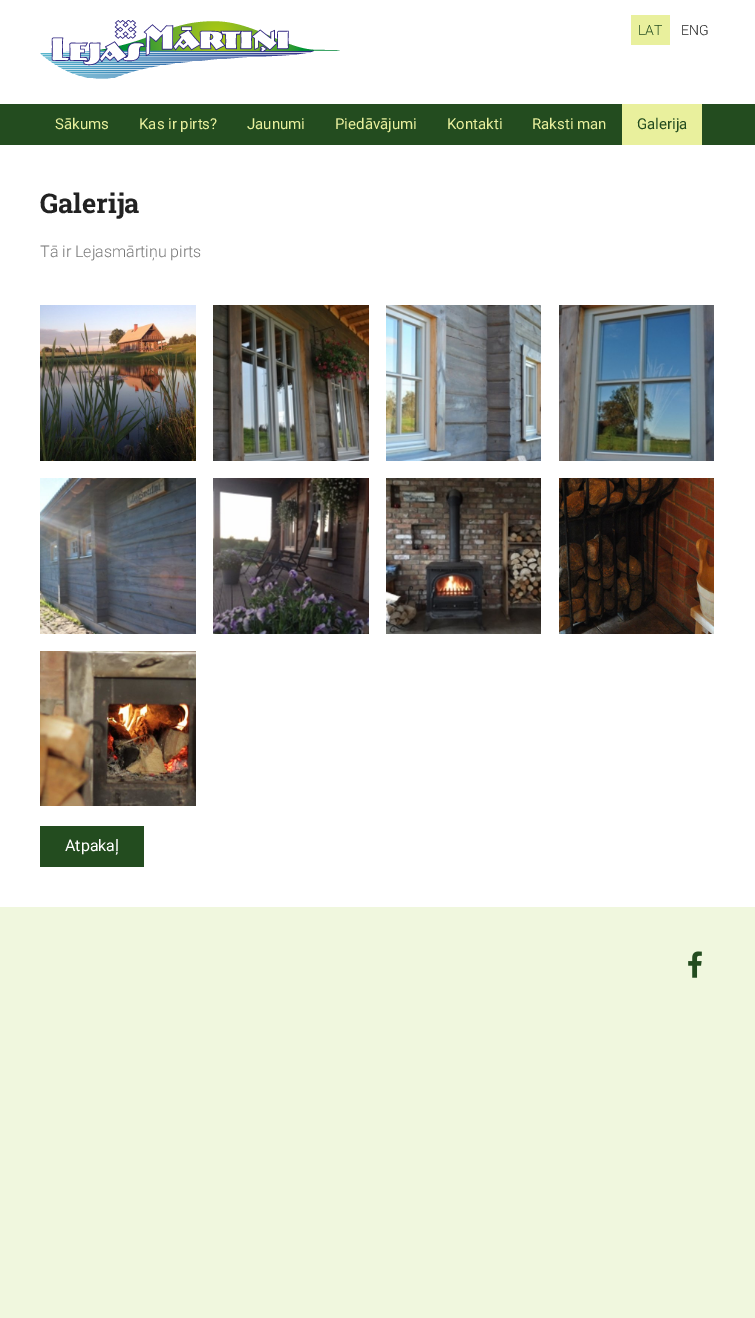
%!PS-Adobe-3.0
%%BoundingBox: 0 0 755 1318
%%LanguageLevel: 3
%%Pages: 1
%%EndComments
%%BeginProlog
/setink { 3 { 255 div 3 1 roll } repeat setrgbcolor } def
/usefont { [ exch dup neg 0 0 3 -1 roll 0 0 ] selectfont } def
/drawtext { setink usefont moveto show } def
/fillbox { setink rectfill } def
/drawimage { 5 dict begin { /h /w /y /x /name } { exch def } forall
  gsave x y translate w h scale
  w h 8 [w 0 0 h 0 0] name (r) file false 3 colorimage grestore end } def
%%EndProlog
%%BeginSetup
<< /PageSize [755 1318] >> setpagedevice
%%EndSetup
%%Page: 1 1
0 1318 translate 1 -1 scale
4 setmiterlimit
0 0 755 1318 240 247 222 fillbox
0 0 755 907 255 255 255 fillbox
(assets/img1.rgb) 40 20 300 59 drawimage
631 15 39 30 233 240 157 fillbox
(LAT) 638 35 /Roboto-Light 14 35 76 31 drawtext
(ENG) 681 35 /Roboto-Light 14 34 34 34 drawtext
0 104 755 41 35 76 31 fillbox
(Sākums) 55 129 /Roboto-Regular 15 233 240 157 drawtext
(Kas ir pirts?) 139 129 /Roboto-Regular 15 233 240 157 drawtext
(Jaunumi) 247 129 /Roboto-Regular 15 233 240 157 drawtext
(Piedāvājumi) 335 129 /Roboto-Regular 15 233 240 157 drawtext
(Kontakti) 447 129 /Roboto-Regular 15 233 240 157 drawtext
(Raksti man) 532 129 /Roboto-Regular 15 233 240 157 drawtext
622 104 80 41 233 240 157 fillbox
(Galerija) 637 129 /Roboto-Regular 15 35 76 31 drawtext
(Galerija) 40 213 /RobotoSlab-Bold 27 34 34 34 drawtext
(Tā ir Lejasmārtiņu pirts) 40 257 /Roboto-Light 16 119 119 119 drawtext
(assets/img2.rgb) 40 305 156 156 drawimage
(assets/img3.rgb) 213 305 156 156 drawimage
(assets/img4.rgb) 386 305 155 156 drawimage
(assets/img5.rgb) 559 305 155 156 drawimage
(assets/img6.rgb) 40 478 156 156 drawimage
(assets/img7.rgb) 213 478 156 156 drawimage
(assets/img8.rgb) 386 478 155 156 drawimage
(assets/img9.rgb) 559 478 155 156 drawimage
(assets/img10.rgb) 40 651 156 155 drawimage
40 826 104 41 35 76 31 fillbox
(Atpakaļ) 65 851 /Roboto-Regular 16 255 255 255 drawtext
(assets/img11.rgb) 688 951 14 27 drawimage
showpage
%%EOF
